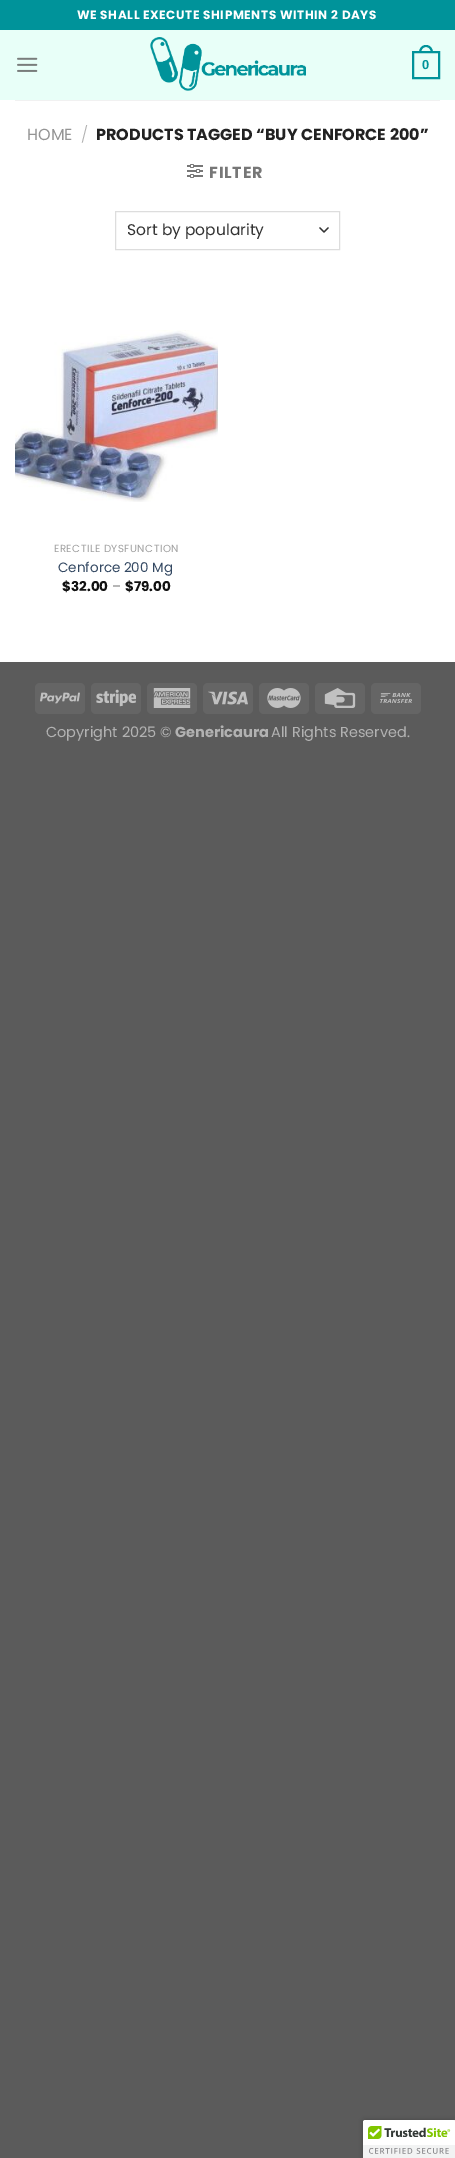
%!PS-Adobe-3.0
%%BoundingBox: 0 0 455 2158
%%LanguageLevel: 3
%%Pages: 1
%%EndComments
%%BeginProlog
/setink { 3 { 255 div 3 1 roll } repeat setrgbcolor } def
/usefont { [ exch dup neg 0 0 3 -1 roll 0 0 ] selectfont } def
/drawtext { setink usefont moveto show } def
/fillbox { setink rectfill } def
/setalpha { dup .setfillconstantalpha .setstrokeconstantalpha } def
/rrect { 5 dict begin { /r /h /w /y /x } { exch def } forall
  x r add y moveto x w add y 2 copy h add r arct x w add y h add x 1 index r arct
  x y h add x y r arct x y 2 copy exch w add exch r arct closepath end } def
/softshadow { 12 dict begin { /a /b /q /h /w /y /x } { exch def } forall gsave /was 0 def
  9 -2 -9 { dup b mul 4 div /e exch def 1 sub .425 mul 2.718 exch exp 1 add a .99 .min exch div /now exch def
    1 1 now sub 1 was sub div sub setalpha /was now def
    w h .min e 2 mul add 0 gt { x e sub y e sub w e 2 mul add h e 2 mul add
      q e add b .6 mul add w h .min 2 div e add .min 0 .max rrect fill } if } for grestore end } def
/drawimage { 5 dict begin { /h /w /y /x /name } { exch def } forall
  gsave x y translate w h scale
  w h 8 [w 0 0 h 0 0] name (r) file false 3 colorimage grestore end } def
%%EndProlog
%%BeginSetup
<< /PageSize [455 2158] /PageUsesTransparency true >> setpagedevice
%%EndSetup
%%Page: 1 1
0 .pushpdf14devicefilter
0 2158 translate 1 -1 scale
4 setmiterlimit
0 0 455 2158 91 91 91 fillbox
0 100 455 562 255 255 255 fillbox
0 0 455 30 0 147 154 fillbox
/Poppins-Bold 12 usefont
255 255 255 setink
77 19 moveto 0.6 0 (WE SHALL EXECUTE SHIPMENTS WITHIN 2 DAYS) ashow
0 30 455 70 232 255 248 fillbox
(assets/img1.rgb) 17 57 21 15 drawimage
(assets/img2.rgb) 150 37 156 54 drawimage
0 147 154 setink
2 setlinewidth
413 52 26 26 rectstroke
426 45 moveto 430.5 45 433 49 433 53 curveto 419 53 lineto 419 49 421.5 45 426 45 curveto closepath 426 47 moveto 429.5 47 431 50 431 53 curveto 421 53 lineto 421 50 422.5 47 426 47 curveto closepath eofill
(0) 422 69 /LiberationSans-Bold 13 0 147 154 drawtext
15 100 425 1 241 241 241 fillbox
(HOME) 27 140 /Poppins-Regular 16 148 148 148 drawtext
(/) 81 140 /Poppins-Light 16 178 178 178 drawtext
(PRODUCTS TAGGED “BUY CENFORCE 200”) 96 140 /Poppins-Bold 16 34 34 34 drawtext
(assets/img3.rgb) 187 164 16 14 drawimage
119 119 119 setink
209 178 moveto 0.75 0 (FILTER) ashow
51 51 51 setink
1.3 setlinewidth
1 setlinecap
1 setlinejoin
320 228 moveto 324 232 lineto 328 228 lineto stroke
221 221 221 setink
1 setlinewidth
0 setlinecap
0 setlinejoin
115.5 211.5 224 38 rectstroke
(Sort by popularity) 127 235 /Poppins-Regular 15.5 51 51 51 drawtext
(assets/img4.rgb) 15 330 203 172 drawimage
/Poppins-Regular 10.25 usefont
160 160 160 setink
54 552 moveto 0.5 0 (ERECTILE DYSFUNCTION) ashow
(Cenforce 200 Mg) 58 572 /Poppins-Regular 13.5 51 72 98 drawtext
($32.00) 62 591 /Poppins-Bold 13.5 17 17 17 drawtext
(–) 112 591 /Poppins-Regular 13.5 119 119 119 drawtext
($79.00) 125 591 /Poppins-Bold 13.5 17 17 17 drawtext
101 101 101 setink
35 683 50 31 5 rrect fill
(assets/img5.rgb) 40 692 40 12 drawimage
91 683 50 31 5 rrect fill
(assets/img6.rgb) 96 689 40 18 drawimage
147 683 50 31 5 rrect fill
(assets/img7.rgb) 153 688 38 20 drawimage
203 683 50 31 5 rrect fill
(assets/img8.rgb) 208 691 40 14 drawimage
259 683 50 31 5 rrect fill
(assets/img9.rgb) 267 688 34 20 drawimage
315 683 50 31 5 rrect fill
(assets/img10.rgb) 324 688 32 20 drawimage
371 683 50 31 5 rrect fill
(assets/img11.rgb) 380 693 32 10 drawimage
(Copyright 2025 ©) 46 737 /Poppins-Regular 14.5 178 178 178 drawtext
(Genericaura) 175 737 /Poppins-Bold 14.5 178 178 178 drawtext
(All Rights Reserved.) 271 737 /Poppins-Regular 14.5 178 178 178 drawtext
0 0 0 setink
363 2120 92 38 2 2.5 0.2 softshadow
255 255 255 setink
365 2120 moveto 455 2120 lineto 455 2158 lineto 363 2158 lineto 363 2122 lineto 363 2121 364 2120 365 2120 curveto closepath fill
(assets/img12.rgb) 363 2120 92 38 drawimage
.poppdf14devicefilter showpage
%%EOF
